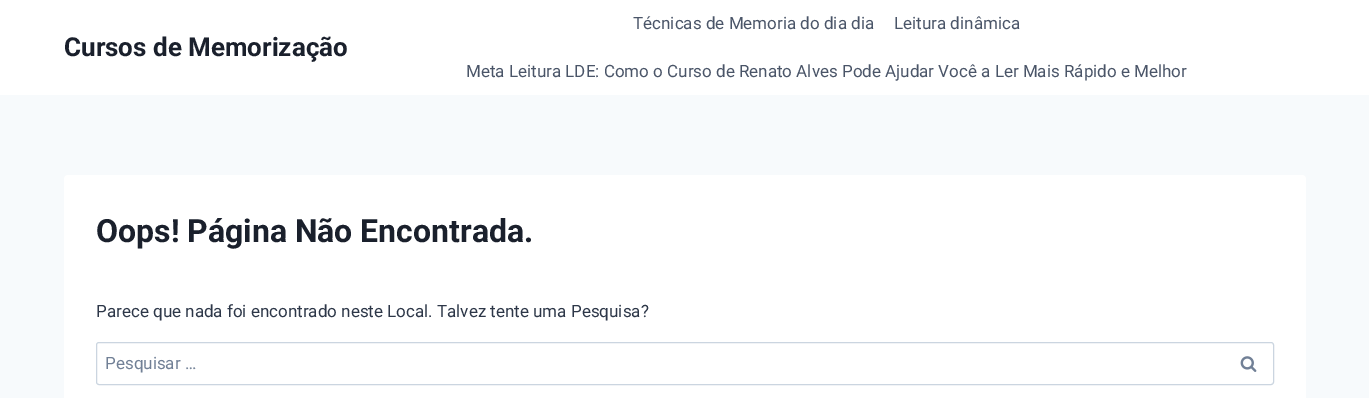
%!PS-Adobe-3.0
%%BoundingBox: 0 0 1369 398
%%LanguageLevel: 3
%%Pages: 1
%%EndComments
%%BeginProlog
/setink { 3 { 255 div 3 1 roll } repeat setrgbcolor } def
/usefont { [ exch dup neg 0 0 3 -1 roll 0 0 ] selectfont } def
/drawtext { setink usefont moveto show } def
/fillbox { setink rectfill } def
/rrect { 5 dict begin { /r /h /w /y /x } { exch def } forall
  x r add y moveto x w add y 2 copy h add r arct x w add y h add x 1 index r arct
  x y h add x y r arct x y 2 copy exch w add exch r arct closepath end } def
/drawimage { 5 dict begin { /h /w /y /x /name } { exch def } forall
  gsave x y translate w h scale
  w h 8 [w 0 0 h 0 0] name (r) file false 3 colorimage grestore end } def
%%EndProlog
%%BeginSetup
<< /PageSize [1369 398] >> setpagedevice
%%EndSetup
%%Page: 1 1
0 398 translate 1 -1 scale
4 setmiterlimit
0 0 1369 398 247 250 252 fillbox
0 0 1369 95 255 255 255 fillbox
(Cursos de Memorização) 64 56 /Roboto-Bold 26 26 32 44 drawtext
(Técnicas de Memoria do dia dia) 633 29 /Roboto-Regular 17 74 85 104 drawtext
(Leitura dinâmica) 894 29 /Roboto-Regular 17 74 85 104 drawtext
(Meta Leitura LDE: Como o Curso de Renato Alves Pode Ajudar Você a Ler Mais Rápido e Melhor) 466 77 /Roboto-Regular 17 74 85 104 drawtext
255 255 255 setink
64 175 1242 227 4 rrect fill
(Oops! Página Não Encontrada.) 96 242 /Roboto-Bold 32 26 32 44 drawtext
(Parece que nada foi encontrado neste Local. Talvez tente uma Pesquisa?) 96 317 /Roboto-Regular 17 45 55 72 drawtext
203 213 224 setink
96.5 342.5 1177 42 2.5 rrect stroke
(Pesquisar …) 105 369 /Roboto-Regular 17 113 128 150 drawtext
(assets/img1.rgb) 1240 356 17 16 drawimage
showpage
%%EOF
